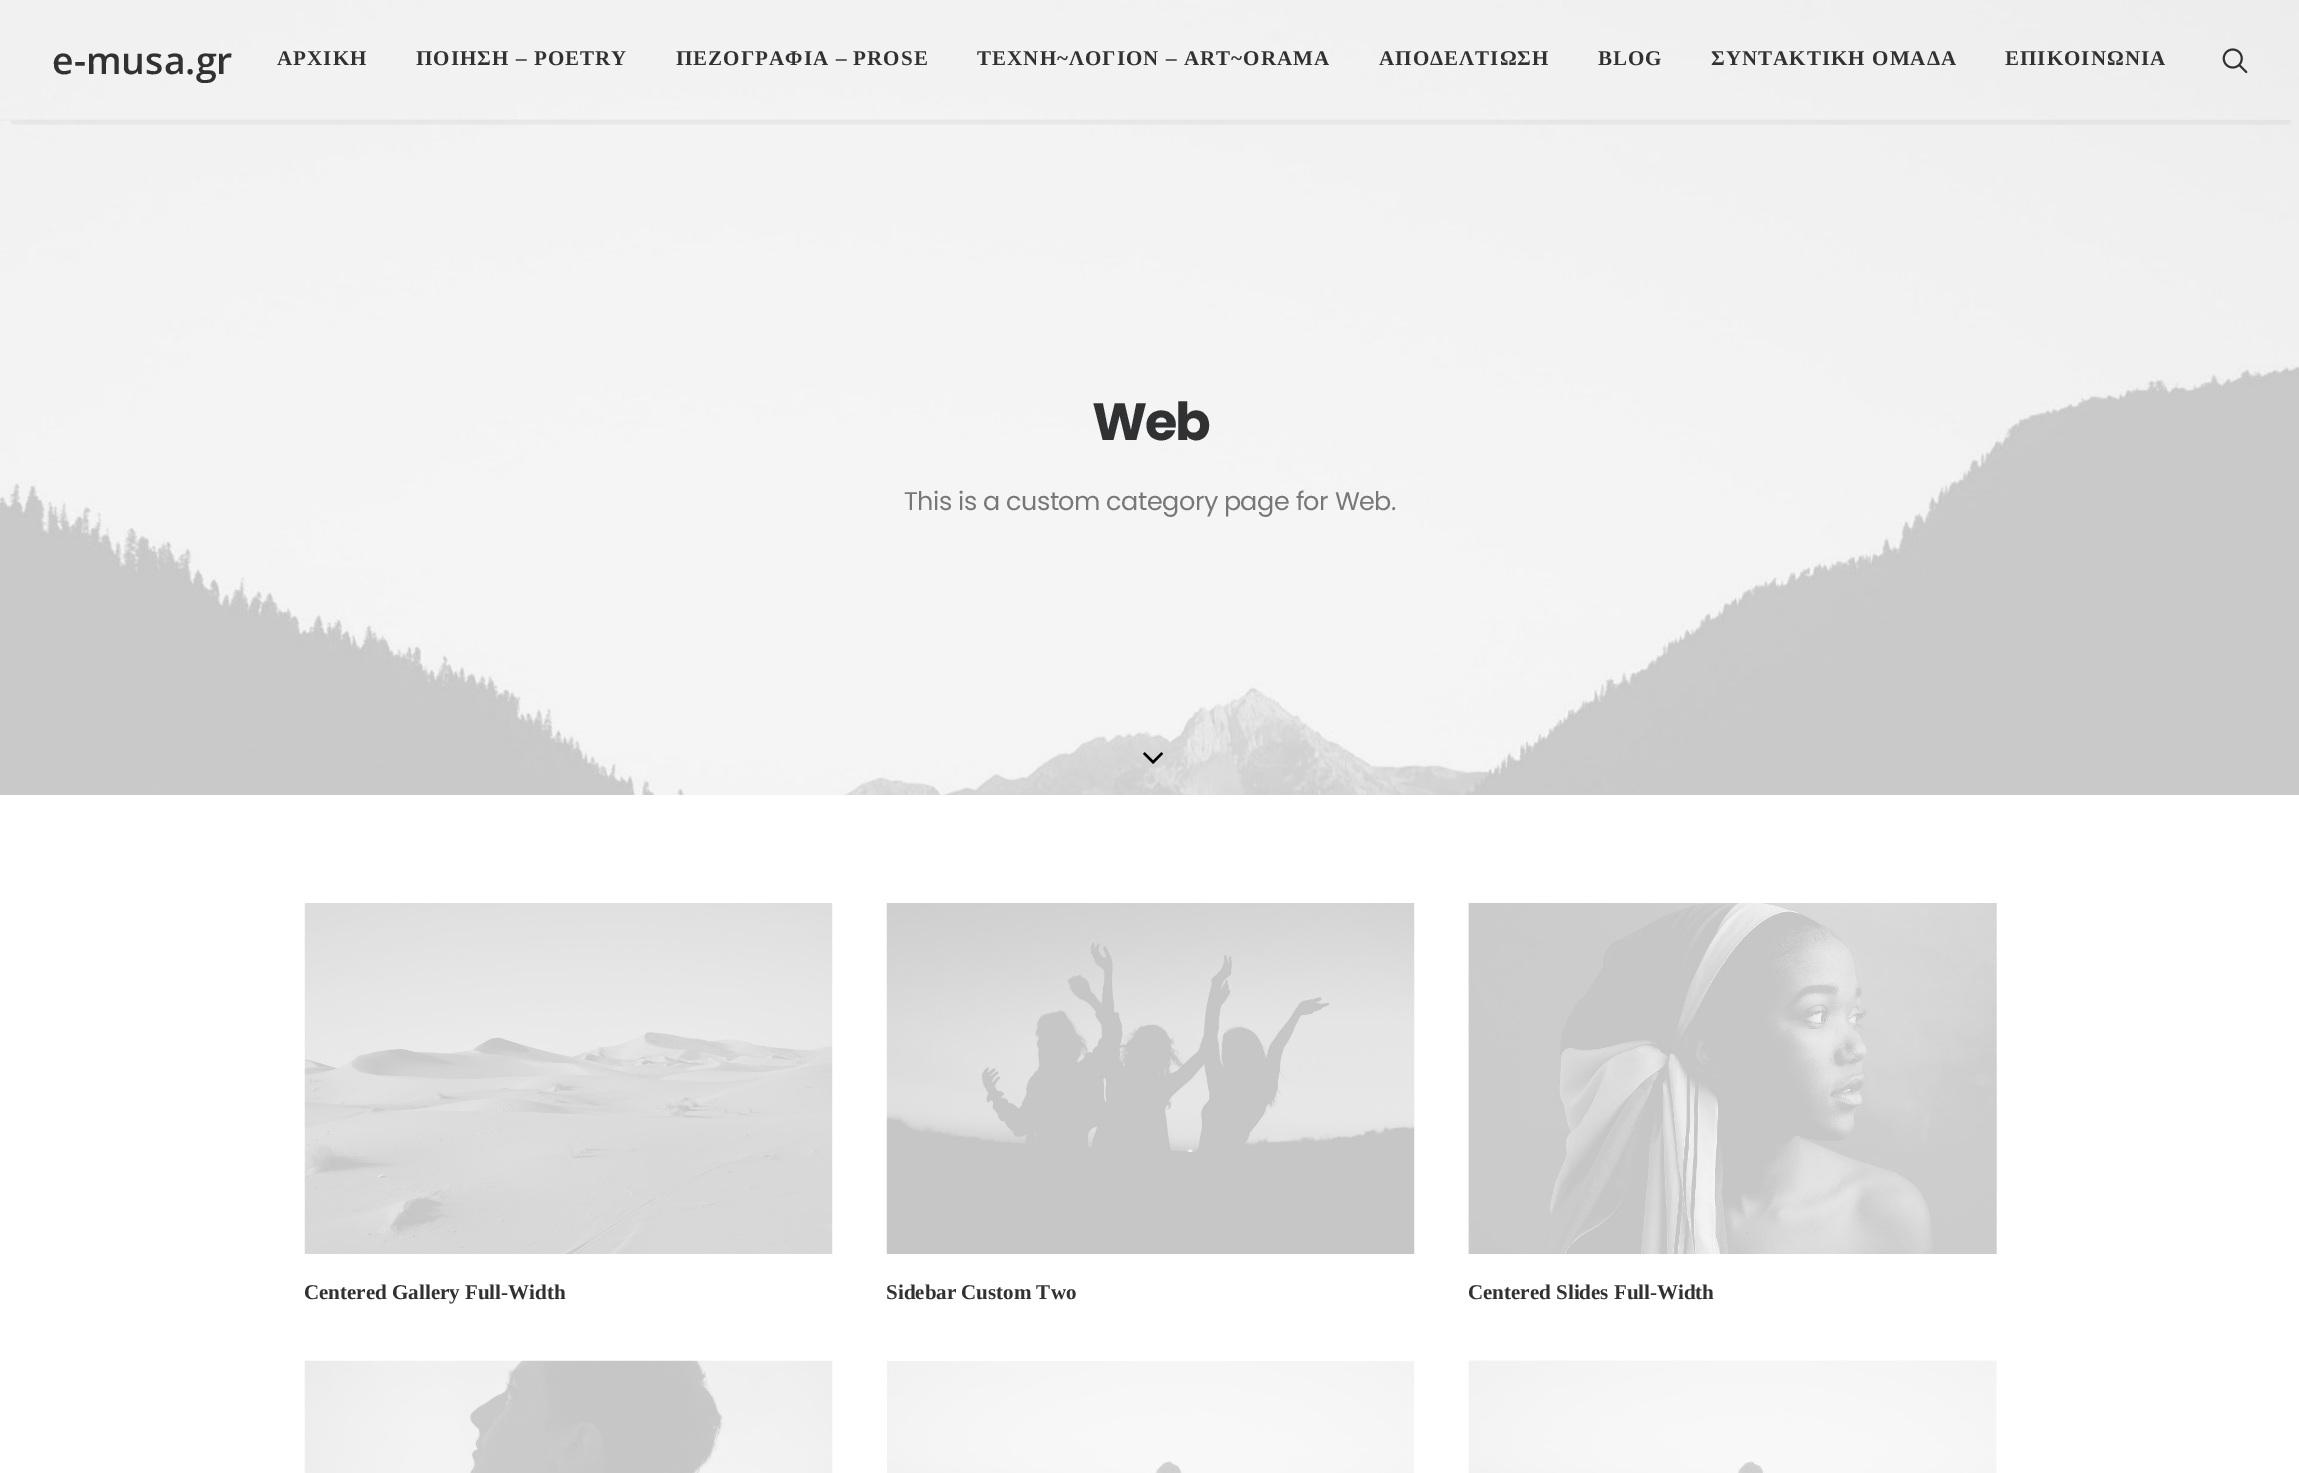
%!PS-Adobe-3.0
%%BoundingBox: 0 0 2299 1473
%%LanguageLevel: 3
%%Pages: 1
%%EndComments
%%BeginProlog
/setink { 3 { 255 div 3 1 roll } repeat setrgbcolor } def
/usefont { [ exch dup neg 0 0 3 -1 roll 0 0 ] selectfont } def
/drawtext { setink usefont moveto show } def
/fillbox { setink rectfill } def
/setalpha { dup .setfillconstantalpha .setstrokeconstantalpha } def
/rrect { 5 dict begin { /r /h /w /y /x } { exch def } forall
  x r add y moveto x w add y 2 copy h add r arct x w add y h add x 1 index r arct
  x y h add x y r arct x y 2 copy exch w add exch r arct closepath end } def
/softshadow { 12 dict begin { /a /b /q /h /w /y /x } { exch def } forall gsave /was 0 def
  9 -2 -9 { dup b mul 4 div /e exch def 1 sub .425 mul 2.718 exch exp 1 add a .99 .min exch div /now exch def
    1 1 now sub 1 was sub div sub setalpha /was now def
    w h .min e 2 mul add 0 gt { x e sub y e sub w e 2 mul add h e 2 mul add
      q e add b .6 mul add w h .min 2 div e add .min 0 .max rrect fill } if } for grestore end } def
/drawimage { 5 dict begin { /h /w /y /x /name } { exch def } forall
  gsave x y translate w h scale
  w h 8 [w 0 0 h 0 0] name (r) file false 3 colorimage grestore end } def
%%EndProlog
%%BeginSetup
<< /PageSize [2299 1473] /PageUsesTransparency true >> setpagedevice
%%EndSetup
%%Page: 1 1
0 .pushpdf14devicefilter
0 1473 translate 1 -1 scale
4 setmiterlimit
0 0 2299 1473 255 255 255 fillbox
(assets/img2.rgb) 0 0 2299 795 drawimage
gsave
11 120 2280 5 rectclip
0 0 0 setink
14 21 2274 90 0 7.5 0.6 softshadow
grestore
0.5 setalpha
0 119 2285 2 234 234 234 fillbox
1 setalpha
(e-musa.gr) 52 74 /OpenSans-SemiBold 37.5 48 49 51 drawtext
/Tinos-Bold 21 usefont
277 65 moveto 1.05 0 (ΑΡΧΙΚΗ) ashow
416 65 moveto 1.05 0 (ΠΟΙΗΣΗ – POETRY) ashow
676 65 moveto 1.05 0 (ΠΕΖΟΓΡΑΦΙΑ – PROSE) ashow
977 65 moveto 1.05 0 (ΤΕΧΝΗ~ΛΟΓΙΟΝ – ART~ORAMA) ashow
1379 65 moveto 1.05 0 (ΑΠΟΔΕΛΤΙΩΣΗ) ashow
1598 65 moveto 1.05 0 (BLOG) ashow
1711 65 moveto 1.05 0 (ΣΥΝΤΑΚΤΙΚΗ ΟΜΑΔΑ) ashow
2005 65 moveto 1.05 0 (ΕΠΙΚΟΙΝΩΝΙΑ) ashow
(assets/img1.rgb) 2222 48 26 26 drawimage
/Poppins-Bold 52.5 usefont
1092 440 moveto -2.5 0 (Web) ashow
/Poppins-Regular 25.5 usefont
119 119 119 setink
904 510 moveto -0.5 0 (This is a custom category page for Web.) ashow
(assets/img3.rgb) 1143 752 21 12 drawimage
(assets/img4.rgb) 304 903 529 351 drawimage
(Centered Gallery Full-Width) 304 1299 /Tinos-Bold 21 48 49 51 drawtext
(assets/img5.rgb) 886 903 529 351 drawimage
(Sidebar Custom Two) 886 1299 /Tinos-Bold 21 48 49 51 drawtext
(assets/img6.rgb) 1468 903 529 351 drawimage
(Centered Slides Full-Width) 1468 1299 /Tinos-Bold 21 48 49 51 drawtext
(assets/img7.rgb) 304 1360 529 113 drawimage
(assets/img8.rgb) 887 1361 527 112 drawimage
(assets/img9.rgb) 1468 1360 529 113 drawimage
.poppdf14devicefilter showpage
%%EOF
